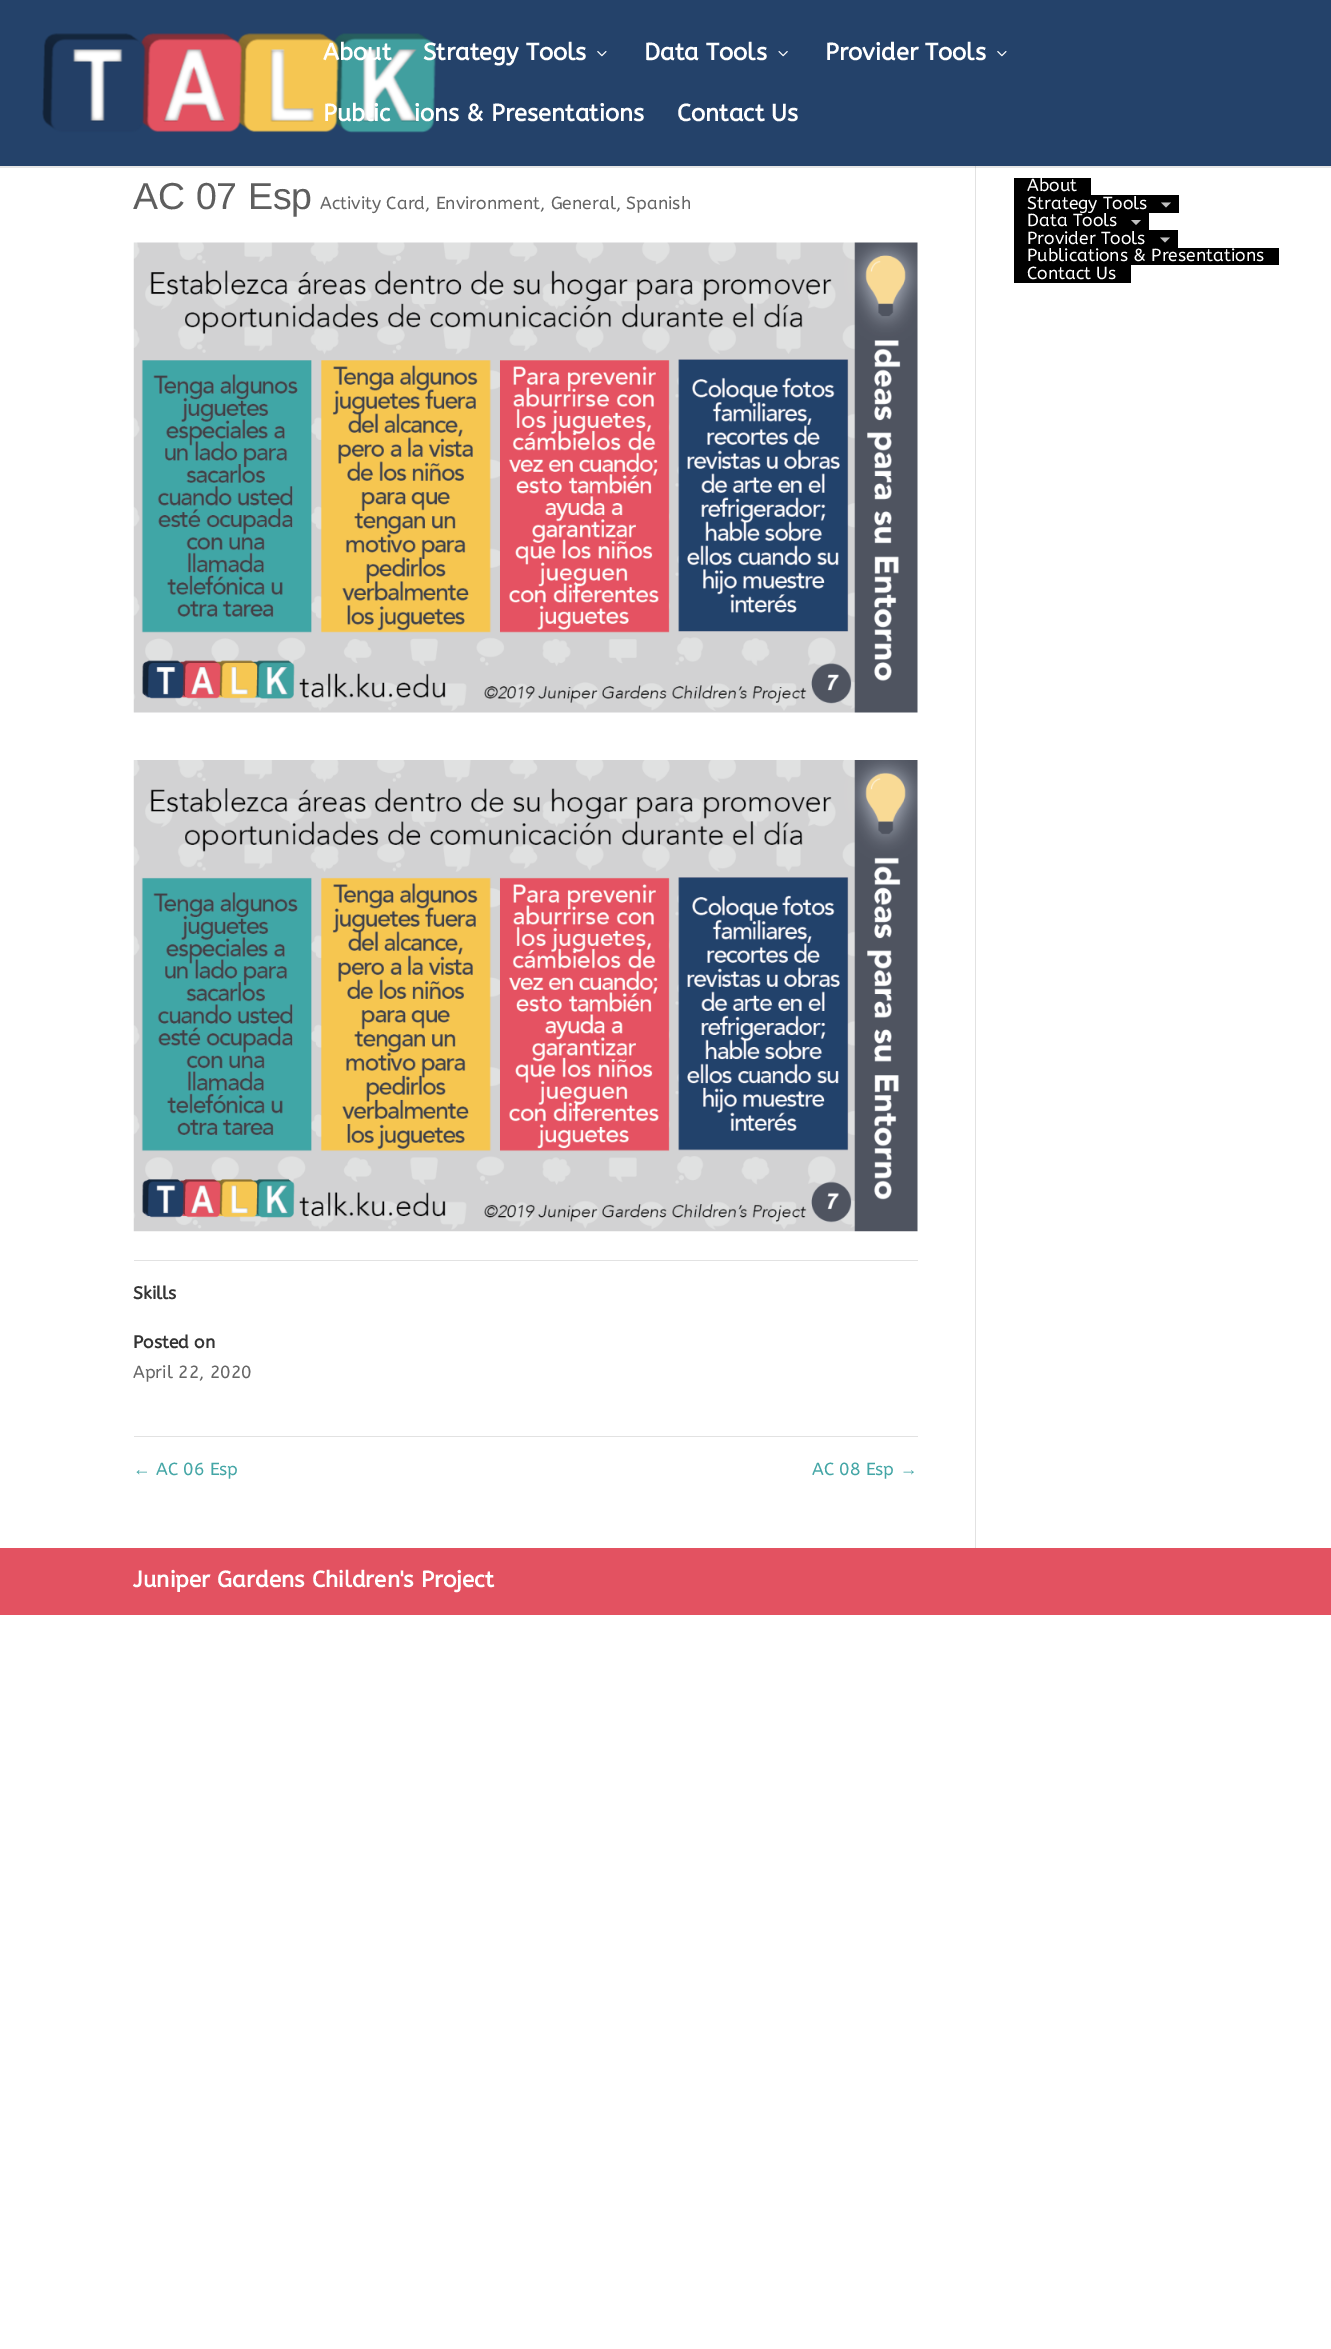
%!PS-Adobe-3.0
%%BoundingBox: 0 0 1331 2349
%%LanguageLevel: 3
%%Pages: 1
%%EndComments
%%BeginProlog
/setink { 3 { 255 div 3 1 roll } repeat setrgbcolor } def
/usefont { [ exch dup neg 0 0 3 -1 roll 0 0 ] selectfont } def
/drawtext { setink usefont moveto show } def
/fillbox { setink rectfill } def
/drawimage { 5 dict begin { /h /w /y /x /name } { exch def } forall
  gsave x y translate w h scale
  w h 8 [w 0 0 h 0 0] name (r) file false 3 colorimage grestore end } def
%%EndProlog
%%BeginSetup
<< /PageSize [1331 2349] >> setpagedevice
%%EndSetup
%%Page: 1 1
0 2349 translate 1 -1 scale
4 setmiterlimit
0 0 1331 2349 255 255 255 fillbox
0 166 1331 2 230 230 230 fillbox
0 0 1331 166 36 66 106 fillbox
(assets/img1.rgb) 42 33 394 100 drawimage
(About) 323 60 /ABeeZee-Bold 23.75 255 255 255 drawtext
(Strategy Tools) 423 60 /ABeeZee-Bold 23.75 255 255 255 drawtext
(assets/img2.rgb) 597 51 10 6 drawimage
(Data Tools) 644 60 /ABeeZee-Bold 23.75 255 255 255 drawtext
(assets/img3.rgb) 778 51 10 6 drawimage
(Provider Tools) 825 60 /ABeeZee-Bold 23.75 255 255 255 drawtext
(assets/img2.rgb) 997 51 10 6 drawimage
(Public) 323 121 /ABeeZee-Bold 23.75 255 255 255 drawtext
(ions & Presentations) 414 121 /ABeeZee-Bold 23.75 255 255 255 drawtext
(Contact Us) 677 121 /ABeeZee-Bold 23.75 255 255 255 drawtext
975 168 1 1380 226 226 226 fillbox
975 166 1 2 203 203 203 fillbox
(AC 07 Esp) 133 209 /LiberationSans-Regular 37.5 94 94 94 drawtext
(Activity Card, Environment, General, Spanish) 320 209 /ABeeZee-Regular 17.5 102 102 102 drawtext
(assets/img4.rgb) 133 242 785 471 drawimage
(assets/img5.rgb) 133 760 785 472 drawimage
134 1260 784 1 226 226 226 fillbox
134 1436 784 1 226 226 226 fillbox
(Skills) 133 1299 /ABeeZee-Bold 17.5 51 51 51 drawtext
(Posted on) 133 1348 /ABeeZee-Bold 17.5 51 51 51 drawtext
(April 22, 2020) 133 1378 /ABeeZee-Regular 17.5 102 102 102 drawtext
(←) 133 1475 /LiberationSans-Regular 17.5 68 166 166 drawtext
(AC 06 Esp) 156 1475 /ABeeZee-Regular 17.5 68 166 166 drawtext
(AC 08 Esp) 812 1475 /ABeeZee-Regular 17.5 68 166 166 drawtext
(→) 900 1475 /LiberationSans-Regular 17.5 68 166 166 drawtext
1014 178 77 17 0 0 0 fillbox
(About) 1027 191 /ABeeZee-Regular 17.5 255 255 255 drawtext
1014 195 165 18 0 0 0 fillbox
(Strategy Tools) 1027 209 /ABeeZee-Regular 17.5 255 255 255 drawtext
192 192 192 setink
1161 202.5 moveto 1171 202.5 lineto 1166 207.5 lineto closepath fill
1014 213 135 17 0 0 0 fillbox
(Data Tools) 1027 226 /ABeeZee-Regular 17.5 255 255 255 drawtext
192 192 192 setink
1131 220 moveto 1141 220 lineto 1136 225 lineto closepath fill
1014 230 164 18 0 0 0 fillbox
(Provider Tools) 1027 244 /ABeeZee-Regular 17.5 255 255 255 drawtext
192 192 192 setink
1160 237.5 moveto 1170 237.5 lineto 1165 242.5 lineto closepath fill
1014 248 265 17 0 0 0 fillbox
(Publications & Presentations) 1027 261 /ABeeZee-Regular 17.5 255 255 255 drawtext
1014 265 117 18 0 0 0 fillbox
(Contact Us) 1027 279 /ABeeZee-Regular 17.5 255 255 255 drawtext
0 1548 1331 67 227 82 97 fillbox
(Juniper Gardens Children's Project) 133 1587 /ABeeZee-Bold 22.5 255 255 255 drawtext
showpage
%%EOF
